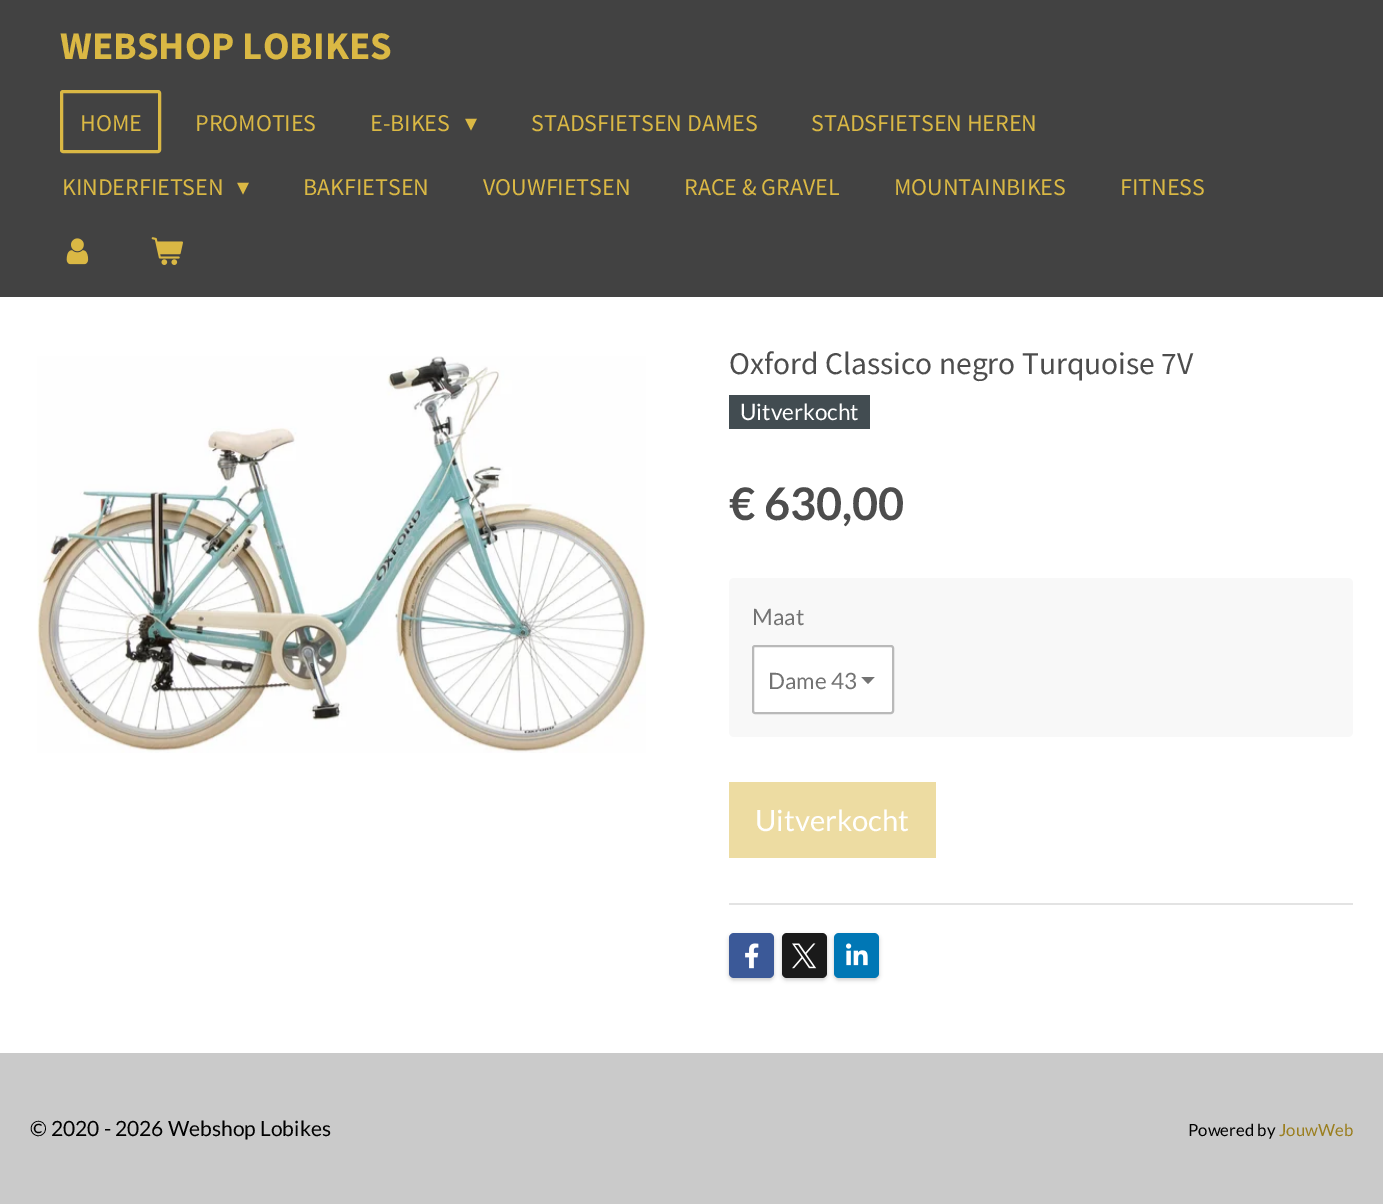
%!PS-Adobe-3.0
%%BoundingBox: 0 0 1383 1204
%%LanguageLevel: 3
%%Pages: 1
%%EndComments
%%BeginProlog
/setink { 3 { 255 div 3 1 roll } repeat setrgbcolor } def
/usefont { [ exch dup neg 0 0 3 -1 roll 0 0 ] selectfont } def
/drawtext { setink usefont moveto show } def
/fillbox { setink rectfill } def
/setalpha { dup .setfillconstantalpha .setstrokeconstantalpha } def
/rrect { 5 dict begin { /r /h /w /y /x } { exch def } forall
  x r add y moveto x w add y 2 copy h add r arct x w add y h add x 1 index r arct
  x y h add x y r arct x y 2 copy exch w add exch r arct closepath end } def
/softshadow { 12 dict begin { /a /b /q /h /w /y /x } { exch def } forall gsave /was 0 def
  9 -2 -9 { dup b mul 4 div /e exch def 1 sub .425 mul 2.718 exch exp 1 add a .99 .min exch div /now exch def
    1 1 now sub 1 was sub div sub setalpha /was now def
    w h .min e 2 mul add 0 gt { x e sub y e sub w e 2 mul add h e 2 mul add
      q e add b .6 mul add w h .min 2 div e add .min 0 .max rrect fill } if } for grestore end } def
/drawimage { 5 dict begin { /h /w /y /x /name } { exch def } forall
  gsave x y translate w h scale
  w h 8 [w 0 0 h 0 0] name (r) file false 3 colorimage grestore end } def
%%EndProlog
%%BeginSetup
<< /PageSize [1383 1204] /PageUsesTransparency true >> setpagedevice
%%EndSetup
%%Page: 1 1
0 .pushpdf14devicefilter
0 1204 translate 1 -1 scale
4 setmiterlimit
0 0 1383 1204 255 255 255 fillbox
0 0 1383 297 66 66 66 fillbox
(WEBSHOP LOBIKES) 60 59 /SourceSansPro-Bold 39 218 184 68 drawtext
3 setlinewidth
61.5 91.5 98 60 1.5 rrect stroke
(HOME) 80 131 /SourceSansPro-Regular 24 218 184 68 drawtext
(PROMOTIES) 195 131 /SourceSansPro-Regular 24 218 184 68 drawtext
(E-BIKES) 370 131 /SourceSansPro-Regular 24 218 184 68 drawtext
(▾) 465 131 /DejaVuSans-Regular 24 218 184 68 drawtext
(STADSFIETSEN DAMES) 531 131 /SourceSansPro-Regular 24 218 184 68 drawtext
(STADSFIETSEN HEREN) 811 131 /SourceSansPro-Regular 24 218 184 68 drawtext
(KINDERFIETSEN) 62 195 /SourceSansPro-Regular 24 218 184 68 drawtext
(▾) 237 195 /DejaVuSans-Regular 24 218 184 68 drawtext
(BAKFIETSEN) 303 195 /SourceSansPro-Regular 24 218 184 68 drawtext
(VOUWFIETSEN) 483 195 /SourceSansPro-Regular 24 218 184 68 drawtext
(RACE & GRAVEL) 684 195 /SourceSansPro-Regular 24 218 184 68 drawtext
(MOUNTAINBIKES) 894 195 /SourceSansPro-Regular 24 218 184 68 drawtext
(FITNESS) 1120 195 /SourceSansPro-Regular 24 218 184 68 drawtext
(assets/img1.rgb) 66 238 23 27 drawimage
(assets/img2.rgb) 151 237 32 28 drawimage
(assets/img3.rgb) 37 356 609 397 drawimage
(Oxford Classico negro Turquoise 7V) 729 374 /SourceSansPro-Regular 31.5 77 77 77 drawtext
729 395 141 34 66 76 81 fillbox
(Uitverkocht) 740 420 /Lato-Regular 22.5 255 255 255 drawtext
(€ 630,00) 729 520 /Lato-Bold 45 77 77 77 drawtext
248 248 248 setink
729 578 624 159 5 rrect fill
(Maat) 752 625 /Lato-Regular 22.5 115 115 115 drawtext
255 255 255 setink
752 645 142 69 3 rrect fill
gsave
861 677 15 7 rectclip
115 115 115 setink
868 684 moveto 861 676.5 lineto 875 676.5 lineto closepath fill
grestore
0.5 setalpha
115 115 115 setink
2 setlinewidth
753 646 140 67 2 rrect stroke
1 setalpha
(Dame 43) 768 689 /Lato-Regular 22.5 115 115 115 drawtext
729 782 207 76 237 220 162 fillbox
(Uitverkocht) 755 831 /Lato-Regular 29.25 255 255 255 drawtext
729 903 624 2 227 227 227 fillbox
0 0 0 setink
729 935 45 45 5 2 0.2 softshadow
59 89 152 setink
729 933 45 45 5 rrect fill
(assets/img4.rgb) 745 943 14 26 drawimage
0 0 0 setink
782 935 45 45 5 2 0.2 softshadow
26 26 26 setink
782 933 45 45 5 rrect fill
(assets/img5.rgb) 792 943 25 26 drawimage
0 0 0 setink
834 935 45 45 5 2 0.2 softshadow
0 119 181 setink
834 933 45 45 5 rrect fill
(assets/img6.rgb) 846 943 22 23 drawimage
0 1053 1383 151 202 202 202 fillbox
(© 2020 - 2026 Webshop Lobikes) 30 1136 /Lato-Regular 21 0 0 0 drawtext
(Powered by) 1188 1136 /Lato-Regular 16.75 0 0 0 drawtext
(JouwWeb) 1279 1136 /Lato-Regular 16.75 154 126 30 drawtext
.poppdf14devicefilter showpage
%%EOF
